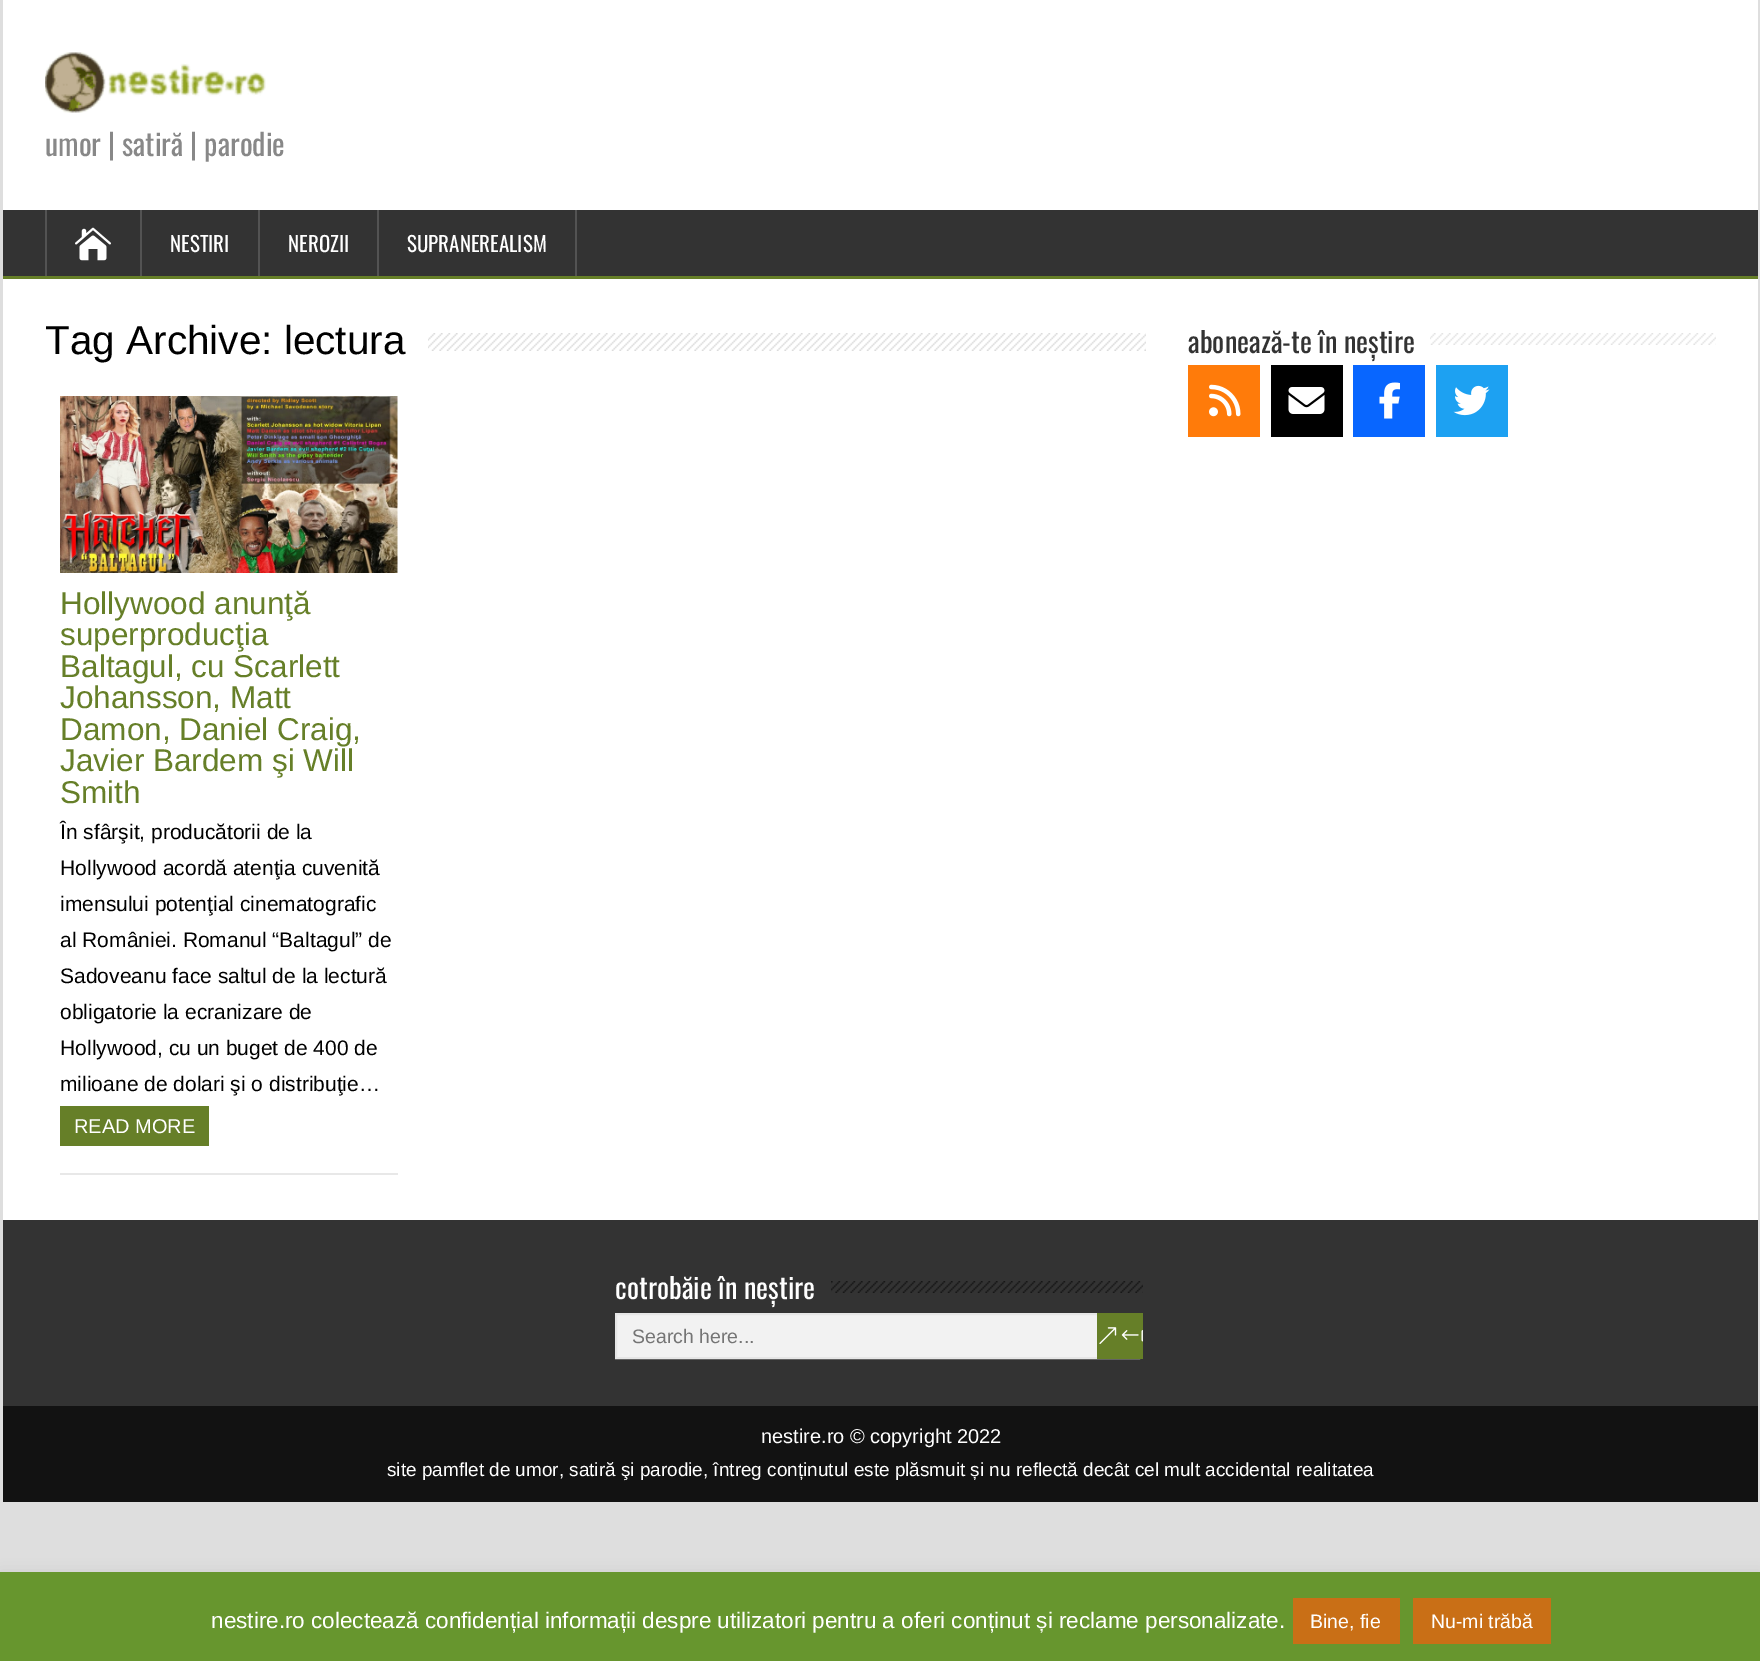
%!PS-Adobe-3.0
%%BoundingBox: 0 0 1760 1661
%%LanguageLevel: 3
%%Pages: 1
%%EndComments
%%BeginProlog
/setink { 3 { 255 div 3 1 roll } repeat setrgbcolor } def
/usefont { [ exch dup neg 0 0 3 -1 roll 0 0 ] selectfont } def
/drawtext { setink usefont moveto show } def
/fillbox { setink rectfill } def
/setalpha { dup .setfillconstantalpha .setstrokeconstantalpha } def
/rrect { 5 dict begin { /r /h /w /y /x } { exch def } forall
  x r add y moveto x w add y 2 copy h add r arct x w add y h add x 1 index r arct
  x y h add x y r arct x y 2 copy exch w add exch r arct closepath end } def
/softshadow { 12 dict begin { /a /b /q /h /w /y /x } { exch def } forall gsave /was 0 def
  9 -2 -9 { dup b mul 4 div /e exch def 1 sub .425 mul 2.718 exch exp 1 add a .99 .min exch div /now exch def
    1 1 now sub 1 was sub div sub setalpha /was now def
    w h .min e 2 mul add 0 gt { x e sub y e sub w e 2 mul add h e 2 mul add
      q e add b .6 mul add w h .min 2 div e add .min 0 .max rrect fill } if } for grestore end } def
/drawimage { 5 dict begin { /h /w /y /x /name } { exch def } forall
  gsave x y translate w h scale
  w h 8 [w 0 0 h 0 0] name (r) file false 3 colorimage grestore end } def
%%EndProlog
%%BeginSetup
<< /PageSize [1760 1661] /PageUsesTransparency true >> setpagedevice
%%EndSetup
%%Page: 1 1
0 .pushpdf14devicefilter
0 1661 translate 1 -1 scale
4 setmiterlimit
0 0 1760 1661 222 222 222 fillbox
3 0 1755 1220 255 255 255 fillbox
(assets/img1.rgb) 45 52 221 61 drawimage
(umor | satiră | parodie) 45 156 /Oswald-Regular 30 136 136 136 drawtext
3 210 1755 66 51 51 51 fillbox
3 276 1755 3 102 127 40 fillbox
140 210 2 66 83 83 83 fillbox
45 210 2 66 83 83 83 fillbox
(assets/img2.rgb) 75 227 36 34 drawimage
258 210 2 66 83 83 83 fillbox
(NESTIRI) 170 252 /Oswald-Regular 21 255 255 255 drawtext
377 210 2 66 83 83 83 fillbox
(NEROZII) 288 252 /Oswald-Regular 21 255 255 255 drawtext
575 210 2 66 83 83 83 fillbox
(SUPRANEREALISM) 407 252 /Oswald-Regular 21 255 255 255 drawtext
(assets/img3.rgb) 428 333 718 18 drawimage
(Tag Archive: lectura) 45 354 /LiberationSans-Regular 40.5 0 0 0 drawtext
60 1173 338 2 232 232 232 fillbox
(assets/img4.rgb) 60 396 338 177 drawimage
(Hollywood anunţă) 60 614 /LiberationSans-Regular 31.5 102 127 40 drawtext
(superproducţia) 60 645 /LiberationSans-Regular 31.5 102 127 40 drawtext
(Baltagul, cu Scarlett) 60 677 /LiberationSans-Regular 31.5 102 127 40 drawtext
(Johansson, Matt) 60 708 /LiberationSans-Regular 31.5 102 127 40 drawtext
(Damon, Daniel Craig,) 60 740 /LiberationSans-Regular 31.5 102 127 40 drawtext
(Javier Bardem şi Will) 60 771 /LiberationSans-Regular 31.5 102 127 40 drawtext
(Smith) 60 803 /LiberationSans-Regular 31.5 102 127 40 drawtext
(În sfârşit, producătorii de la) 60 839 /LiberationSans-Regular 21 0 0 0 drawtext
(Hollywood acordă atenţia cuvenită) 60 875 /LiberationSans-Regular 21 0 0 0 drawtext
(imensului potenţial cinematografic) 60 911 /LiberationSans-Regular 21 0 0 0 drawtext
(al României. Romanul “Baltagul” de) 60 947 /LiberationSans-Regular 21 0 0 0 drawtext
(Sadoveanu face saltul de la lectură) 60 983 /LiberationSans-Regular 21 0 0 0 drawtext
(obligatorie la ecranizare de) 60 1019 /LiberationSans-Regular 21 0 0 0 drawtext
(Hollywood, cu un buget de 400 de) 60 1055 /LiberationSans-Regular 21 0 0 0 drawtext
(milioane de dolari şi o distribuţie…) 60 1091 /LiberationSans-Regular 21 0 0 0 drawtext
60 1106 149 40 102 127 40 fillbox
(READ MORE) 74 1133 /LiberationSans-Regular 20 255 255 255 drawtext
(assets/img5.rgb) 1430 333 286 12 drawimage
(abonează-te în neștire) 1188 353 /Oswald-Regular 28.5 51 51 51 drawtext
1188 365 72 72 255 123 10 fillbox
(assets/img6.rgb) 1209 384 32 33 drawimage
1271 365 72 72 0 0 0 fillbox
(assets/img7.rgb) 1288 387 37 27 drawimage
1353 365 72 72 8 102 255 fillbox
(assets/img8.rgb) 1379 382 21 37 drawimage
1436 365 72 72 29 161 242 fillbox
(assets/img9.rgb) 1453 385 37 31 drawimage
3 1220 1755 186 51 51 51 fillbox
(assets/img10.rgb) 831 1281 312 12 drawimage
(cotrobăie în neștire) 615 1299 /Oswald-Regular 28.5 255 255 255 drawtext
617 1315 480 42 242 242 242 fillbox
230 230 230 setink
2 setlinewidth
616 1314 523 44 rectstroke
(Search here...) 632 1343 /LiberationSans-Regular 19.5 117 117 117 drawtext
1097 1313 46 46 102 127 40 fillbox
(assets/img11.rgb) 1099 1327 44 17 drawimage
3 1406 1755 96 18 18 18 fillbox
(nestire.ro © copyright 2022) 761 1443 /LiberationSans-Regular 20 255 255 255 drawtext
(site pamflet de umor, satiră şi parodie, întreg conținutul este plăsmuit și nu reflectă decât cel mult accidental realitatea) 387 1476 /LiberationSans-Regular 18.95 255 255 255 drawtext
172 171 171 setink
0 1571 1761 90 0 7.5 0.3 softshadow
0 1572 1760 89 103 150 46 fillbox
(nestire.ro colectează confidențial informații despre utilizatori pentru a oferi conținut și reclame personalizate.) 211 1628 /LiberationSans-Regular 22.5 255 255 255 drawtext
1293 1598 107 46 201 111 22 fillbox
(Bine, fie) 1310 1628 /LiberationSans-Regular 19.5 255 255 255 drawtext
1413 1598 138 46 201 111 22 fillbox
(Nu-mi trăbă) 1431 1628 /LiberationSans-Regular 19.5 255 255 255 drawtext
.poppdf14devicefilter showpage
%%EOF
